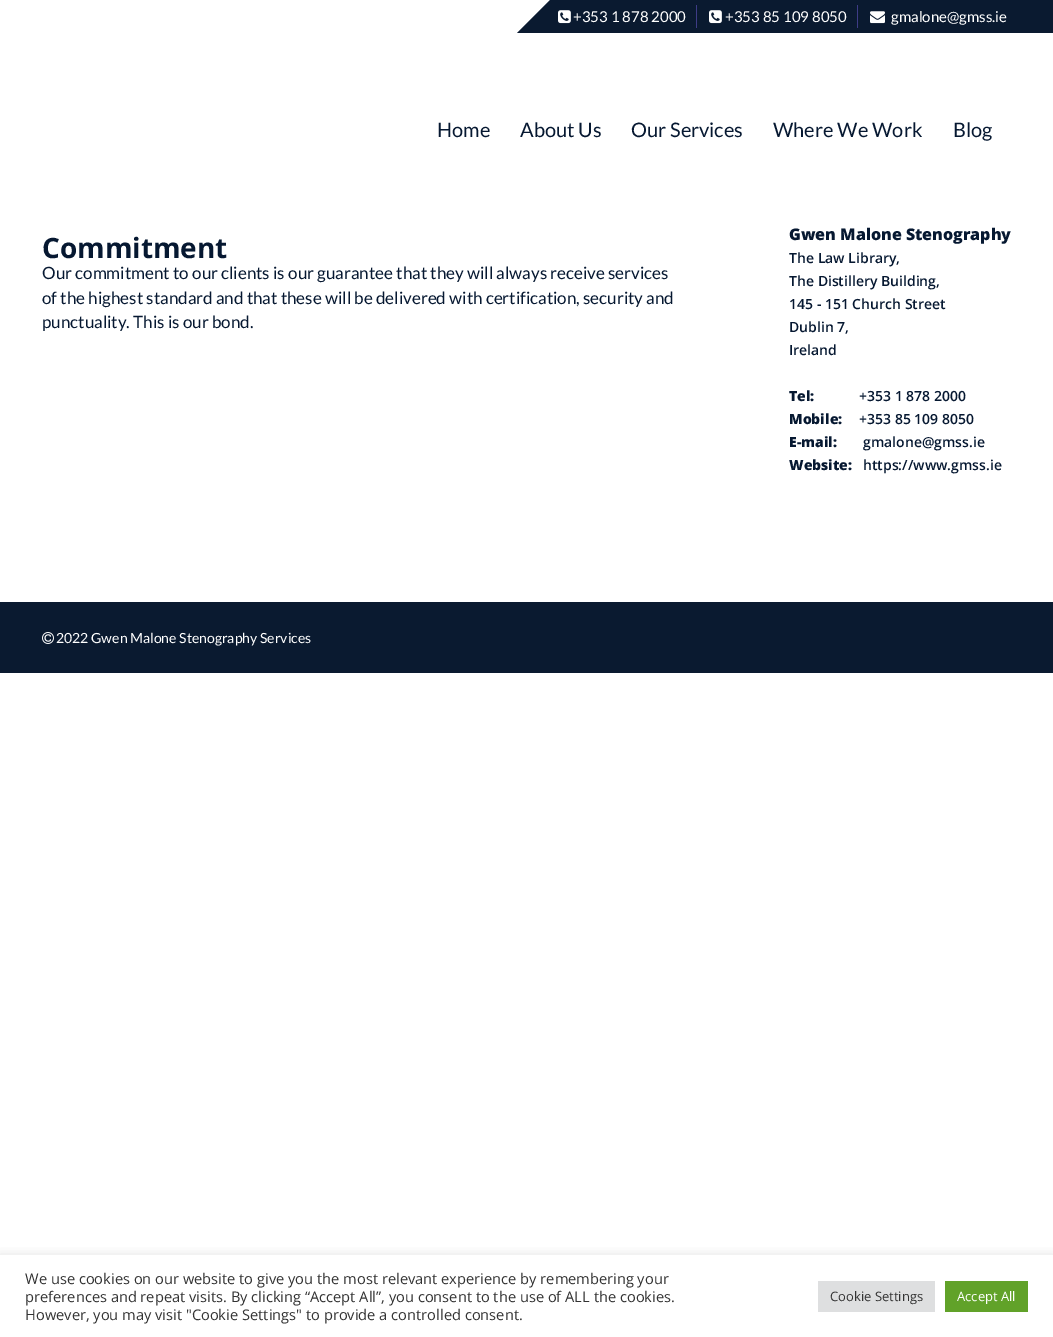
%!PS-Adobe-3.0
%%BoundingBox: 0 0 1053 1337
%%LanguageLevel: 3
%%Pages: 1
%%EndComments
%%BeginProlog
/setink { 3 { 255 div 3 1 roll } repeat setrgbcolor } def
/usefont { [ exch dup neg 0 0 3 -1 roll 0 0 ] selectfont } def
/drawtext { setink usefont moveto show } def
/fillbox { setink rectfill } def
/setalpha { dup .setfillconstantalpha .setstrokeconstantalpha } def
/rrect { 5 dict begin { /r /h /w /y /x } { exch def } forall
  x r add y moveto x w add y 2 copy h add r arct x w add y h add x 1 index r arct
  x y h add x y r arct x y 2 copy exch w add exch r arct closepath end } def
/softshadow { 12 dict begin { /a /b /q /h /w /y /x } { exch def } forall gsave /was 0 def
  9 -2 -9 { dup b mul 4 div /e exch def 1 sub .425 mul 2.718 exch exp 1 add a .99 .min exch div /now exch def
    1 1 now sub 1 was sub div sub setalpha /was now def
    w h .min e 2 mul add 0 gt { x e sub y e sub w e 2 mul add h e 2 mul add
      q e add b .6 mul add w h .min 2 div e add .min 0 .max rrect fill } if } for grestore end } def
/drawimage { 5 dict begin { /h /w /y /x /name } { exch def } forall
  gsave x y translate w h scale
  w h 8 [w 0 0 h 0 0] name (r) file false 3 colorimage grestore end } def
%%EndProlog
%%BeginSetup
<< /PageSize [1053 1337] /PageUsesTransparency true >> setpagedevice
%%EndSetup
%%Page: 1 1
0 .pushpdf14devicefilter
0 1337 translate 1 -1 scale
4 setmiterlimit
0 0 1053 1337 255 255 255 fillbox
550 0 503 33 10 26 48 fillbox
550 33 moveto 517 33 lineto 550 0 lineto closepath fill
(assets/img1.rgb) 558 10 13 14 drawimage
(+353 1 878 2000) 573 22 /Lato-Regular 15 255 255 255 drawtext
696 5 1 23 62 60 135 fillbox
(assets/img1.rgb) 709 10 13 14 drawimage
(+353 85 109 8050) 725 22 /Lato-Regular 15 255 255 255 drawtext
857 5 1 23 62 60 135 fillbox
(assets/img2.rgb) 870 11 15 13 drawimage
(gmalone@gmss.ie) 891 22 /Lato-Regular 15 255 255 255 drawtext
(Home) 437 137 /Lato-Regular 20 6 24 49 drawtext
(About Us) 520 137 /Lato-Regular 20 6 24 49 drawtext
(Our Services) 631 137 /Lato-Regular 20 6 24 49 drawtext
(Where We Work) 773 137 /Lato-Regular 20 6 24 49 drawtext
(Blog) 953 137 /Lato-Regular 20 6 24 49 drawtext
(Commitment) 42 258 /OpenSans-Bold 28 6 24 49 drawtext
(Our commitment to our clients is our guarantee that they will always receive services) 42 279 /Lato-Regular 17 6 24 49 drawtext
(of the highest standard and that these will be delivered with certification, security and) 42 304 /Lato-Regular 17 6 24 49 drawtext
(punctuality. This is our bond.) 42 328 /Lato-Regular 17 6 24 49 drawtext
(Gwen Malone Stenography) 789 240 /OpenSans-ExtraBold 16 6 24 49 drawtext
(The Law Library,) 789 263 /OpenSans-SemiBold 14 6 24 49 drawtext
(The Distillery Building,) 789 286 /OpenSans-SemiBold 14 6 24 49 drawtext
(145 - 151 Church Street) 789 309 /OpenSans-SemiBold 14 6 24 49 drawtext
(Dublin 7,) 789 332 /OpenSans-SemiBold 14 6 24 49 drawtext
(Ireland) 789 355 /OpenSans-SemiBold 14 6 24 49 drawtext
(Tel:) 789 401 /OpenSans-ExtraBold 14 6 24 49 drawtext
(+353 1 878 2000) 859 401 /OpenSans-SemiBold 14 6 24 49 drawtext
(Mobile:) 789 424 /OpenSans-ExtraBold 14 6 24 49 drawtext
(+353 85 109 8050) 859 424 /OpenSans-SemiBold 14 6 24 49 drawtext
(E-mail:) 789 447 /OpenSans-ExtraBold 14 6 24 49 drawtext
(gmalone@gmss.ie) 863 447 /OpenSans-SemiBold 14 6 24 49 drawtext
(Website:) 789 470 /OpenSans-ExtraBold 14 6 24 49 drawtext
(https://www.gmss.ie) 863 470 /OpenSans-SemiBold 14 6 24 49 drawtext
0 602 1053 71 10 26 48 fillbox
(assets/img3.rgb) 42 632 12 12 drawimage
(2022 Gwen Malone Stenography Services) 56 643 /Lato-Regular 14 255 255 255 drawtext
gsave
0 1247 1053 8 rectclip
172 171 171 setink
0 1254 1053 82 0 5 0.3 softshadow
grestore
(We use cookies on our website to give you the most relevant experience by remembering your) 25 1284 /OpenSans-Regular 14.65 51 51 51 drawtext
(preferences and repeat visits. By clicking “Accept All”, you consent to the use of ALL the cookies.) 25 1302 /OpenSans-Regular 14.65 51 51 51 drawtext
(However, you may visit "Cookie Settings" to provide a controlled consent.) 25 1320 /OpenSans-Regular 14.65 51 51 51 drawtext
818 1281 117 31 222 223 224 fillbox
(Cookie Settings) 830 1301 /OpenSans-Regular 13 51 51 51 drawtext
945 1281 83 31 97 162 41 fillbox
(Accept All) 957 1301 /OpenSans-Regular 13 255 255 255 drawtext
.poppdf14devicefilter showpage
%%EOF
